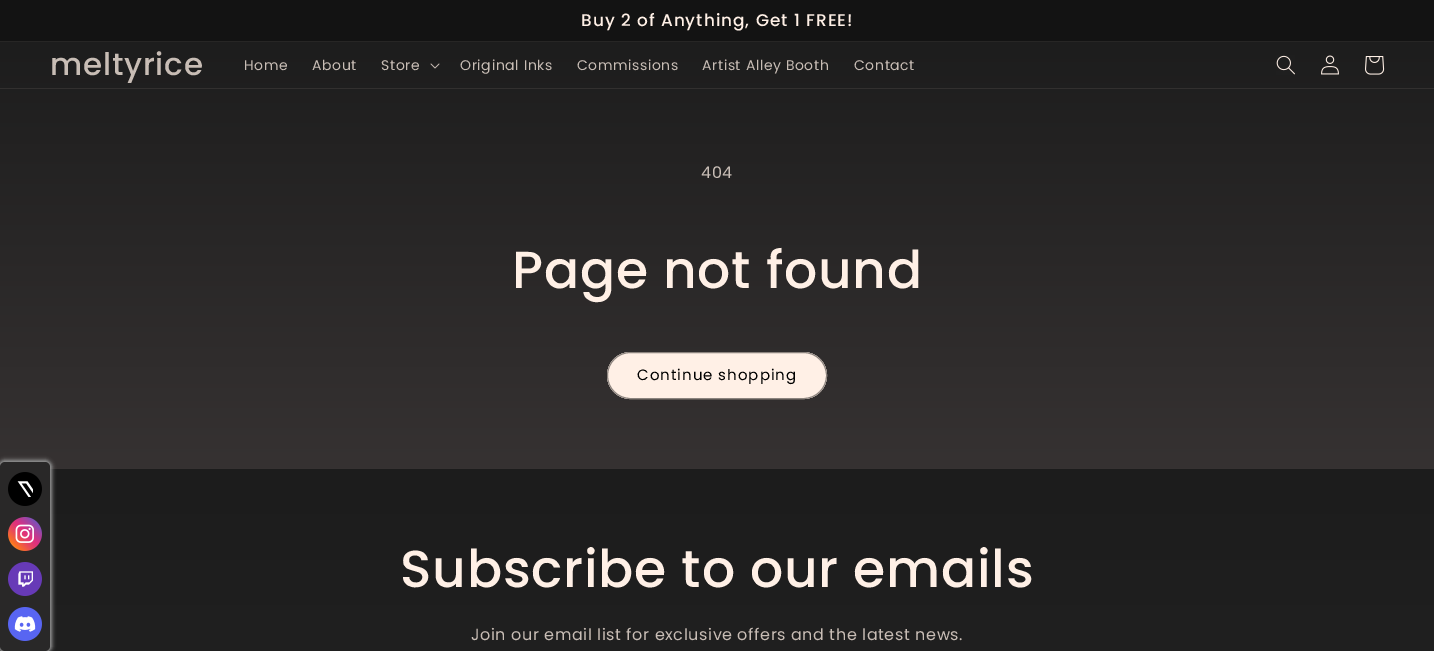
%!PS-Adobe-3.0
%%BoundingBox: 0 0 1434 651
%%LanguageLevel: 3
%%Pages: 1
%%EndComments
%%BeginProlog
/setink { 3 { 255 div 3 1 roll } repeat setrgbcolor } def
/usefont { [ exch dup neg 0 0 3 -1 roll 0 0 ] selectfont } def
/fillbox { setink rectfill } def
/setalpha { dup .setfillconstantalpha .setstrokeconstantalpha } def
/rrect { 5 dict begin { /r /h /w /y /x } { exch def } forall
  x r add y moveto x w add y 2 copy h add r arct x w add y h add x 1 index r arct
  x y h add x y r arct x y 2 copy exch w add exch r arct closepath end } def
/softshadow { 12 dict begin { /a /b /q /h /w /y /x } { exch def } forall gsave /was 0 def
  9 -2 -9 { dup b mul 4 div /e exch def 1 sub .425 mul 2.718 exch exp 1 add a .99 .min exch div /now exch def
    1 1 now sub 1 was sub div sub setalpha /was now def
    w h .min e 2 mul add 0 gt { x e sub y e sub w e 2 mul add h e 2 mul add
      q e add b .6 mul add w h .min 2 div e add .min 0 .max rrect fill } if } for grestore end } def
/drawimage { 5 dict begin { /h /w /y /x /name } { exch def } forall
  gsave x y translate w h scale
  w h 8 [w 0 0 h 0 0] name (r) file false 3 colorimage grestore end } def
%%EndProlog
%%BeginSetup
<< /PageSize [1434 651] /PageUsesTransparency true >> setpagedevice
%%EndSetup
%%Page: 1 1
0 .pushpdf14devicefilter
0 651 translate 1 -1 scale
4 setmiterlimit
0 0 1434 651 255 255 255 fillbox
gsave 0 42 moveto 1434 42 lineto 1434 469 lineto 0 469 lineto closepath clip newpath
<< /ShadingType 2 /ColorSpace /DeviceRGB /Coords [717 0 717 651] /Extend [true true] /Function << /FunctionType 2 /Domain [0 1] /C0 [0.106 0.106 0.106] /C1 [0.251 0.231 0.231] /N 1 >> >> shfill grestore
gsave 0 0 moveto 1434 0 lineto 1434 41 lineto 0 41 lineto closepath clip newpath
<< /ShadingType 2 /ColorSpace /DeviceRGB /Coords [717 651 717 0] /Extend [true true] /Function << /FunctionType 2 /Domain [0 1] /C0 [0.125 0.125 0.125] /C1 [0.075 0.075 0.075] /N 1 >> >> shfill grestore
0 41 1434 1 39 38 37 fillbox
/Poppins-Medium 16.9 usefont
255 240 230 setink
581 26 moveto 1 0 (Buy 2 of Anything, Get 1 FREE!) ashow
0 88 1434 1 50 48 47 fillbox
/Poppins-Medium 31 usefont
200 189 181 setink
50 75 moveto 0.75 0 (meltyrice) ashow
/Poppins-Regular 14 usefont
244 70 moveto 0.6 0 (Home) ashow
312 70 moveto 0.6 0 (About) ashow
381 70 moveto 0.6 0 (Store) ashow
(assets/img1.rgb) 430 63 10 6 drawimage
460 70 moveto 0.6 0 (Original Inks) ashow
577 70 moveto 0.6 0 (Commissions) ashow
702 70 moveto 0.6 0 (Artist Alley Booth) ashow
854 70 moveto 0.6 0 (Contact) ashow
(assets/img2.rgb) 1276 55 19 20 drawimage
(assets/img3.rgb) 1321 55 18 20 drawimage
(assets/img4.rgb) 1365 56 20 19 drawimage
gsave 0 469 moveto 1434 469 lineto 1434 651 lineto 0 651 lineto closepath clip newpath
<< /ShadingType 2 /ColorSpace /DeviceRGB /Coords [717 651 717 0] /Extend [true true] /Function << /FunctionType 2 /Domain [0 1] /C0 [0.125 0.125 0.125] /C1 [0.075 0.075 0.075] /N 1 >> >> shfill grestore
158 158 158 setink
-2 460 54 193 7 2 1 softshadow
41 40 40 setink
0 462 50 189 5 rrect fill
(assets/img5.rgb) 8 472 34 34 drawimage
(assets/img6.rgb) 8 517 34 34 drawimage
(assets/img7.rgb) 8 562 34 34 drawimage
(assets/img8.rgb) 8 607 34 34 drawimage
/Poppins-Regular 16 usefont
200 189 181 setink
701 178 moveto 0.6 0 (404) ashow
/Poppins-Medium 52 usefont
255 240 230 setink
512 288 moveto 0.75 0 (Page not found) ashow
607 352 220 47 23.5 rrect fill
607.5 352.5 219 46 23 rrect stroke
0.45 setalpha
0 0 0 setink
607.5 352.5 219 46 23 rrect stroke
/Poppins-Regular 15 usefont
1 setalpha
637 380 moveto 1 0 (Continue shopping) ashow
/Poppins-Medium 52 usefont
255 240 230 setink
400 587 moveto 0.75 0 (Subscribe to our emails) ashow
/Poppins-Regular 16 usefont
200 189 181 setink
471 640 moveto 0.6 0 (Join our email list for exclusive offers and the latest news.) ashow
.poppdf14devicefilter showpage
%%EOF
